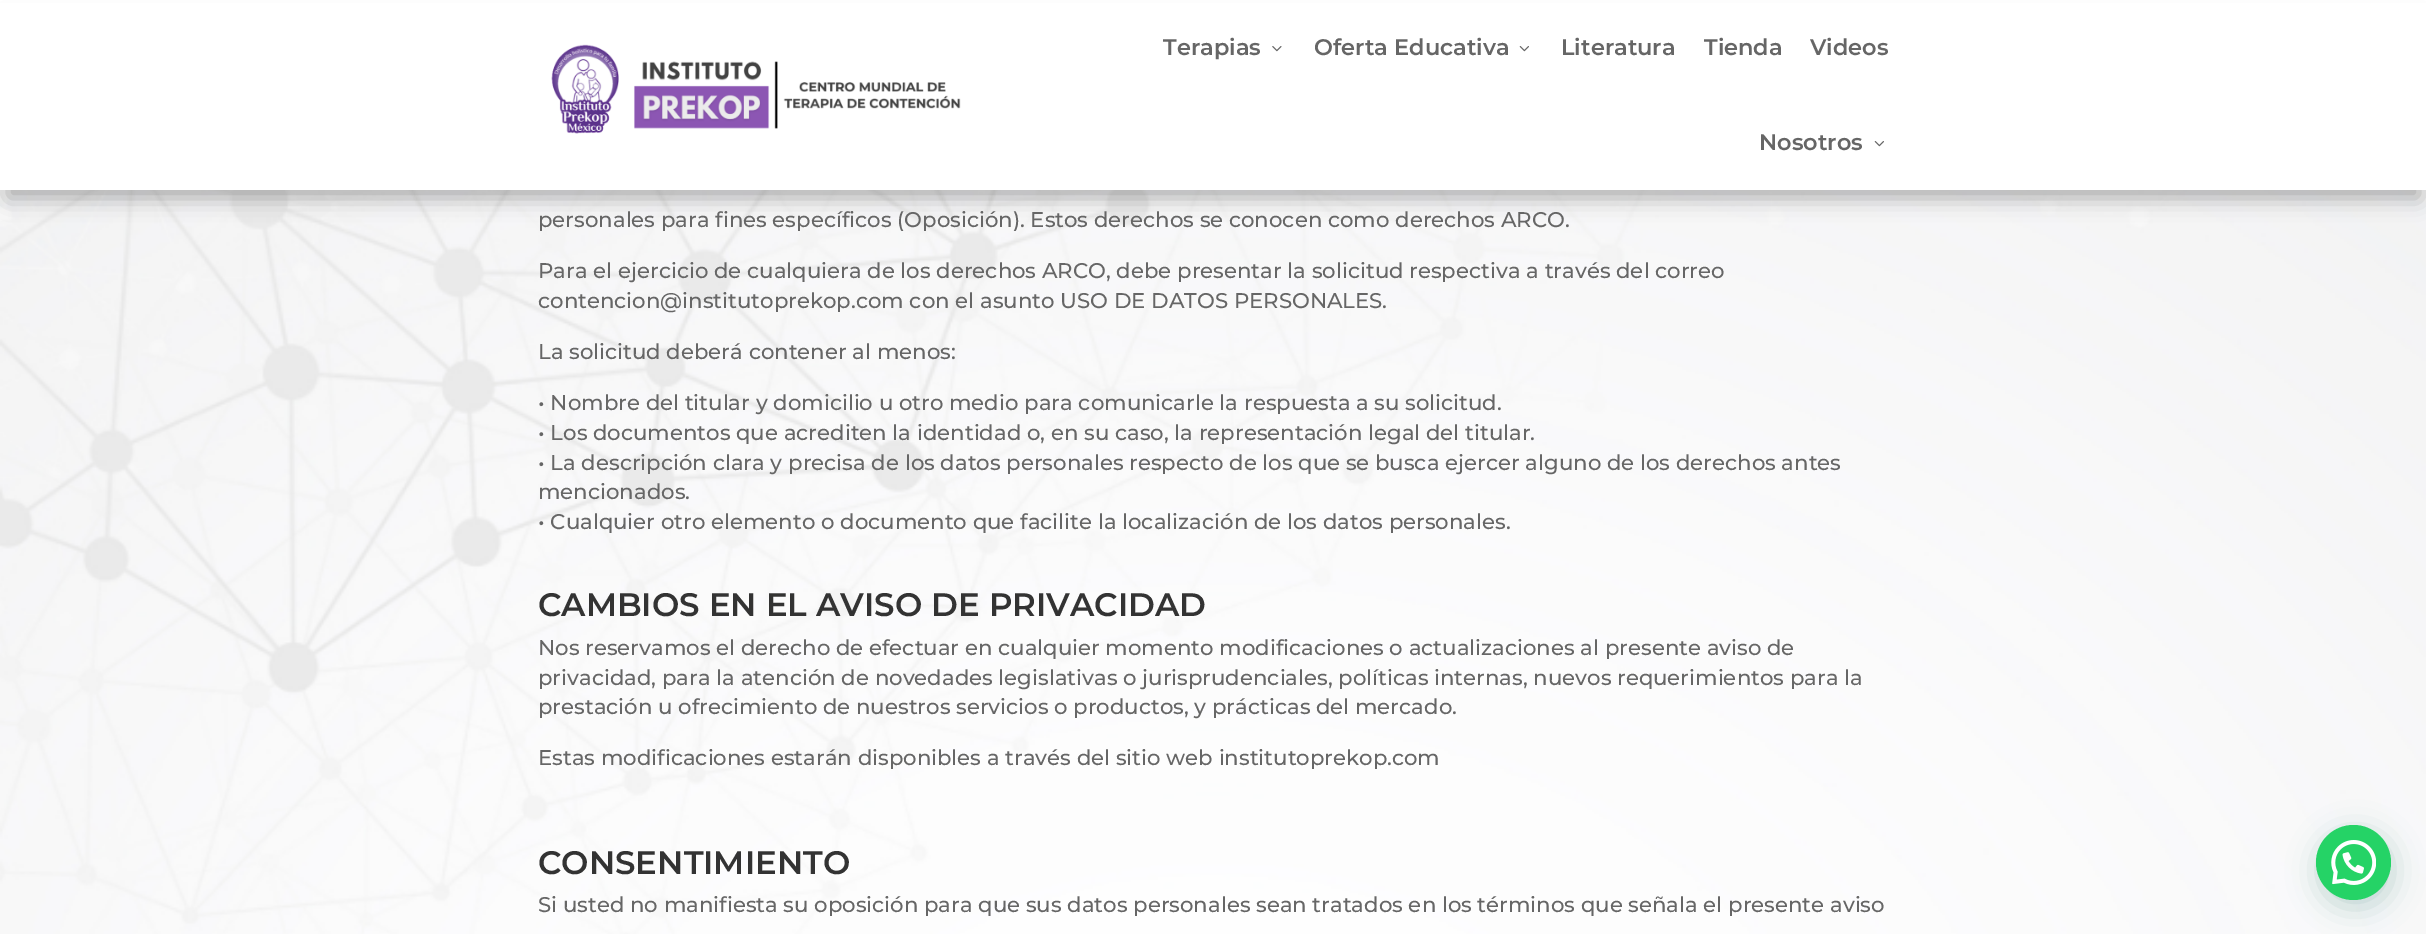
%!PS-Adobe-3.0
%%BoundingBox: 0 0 2426 934
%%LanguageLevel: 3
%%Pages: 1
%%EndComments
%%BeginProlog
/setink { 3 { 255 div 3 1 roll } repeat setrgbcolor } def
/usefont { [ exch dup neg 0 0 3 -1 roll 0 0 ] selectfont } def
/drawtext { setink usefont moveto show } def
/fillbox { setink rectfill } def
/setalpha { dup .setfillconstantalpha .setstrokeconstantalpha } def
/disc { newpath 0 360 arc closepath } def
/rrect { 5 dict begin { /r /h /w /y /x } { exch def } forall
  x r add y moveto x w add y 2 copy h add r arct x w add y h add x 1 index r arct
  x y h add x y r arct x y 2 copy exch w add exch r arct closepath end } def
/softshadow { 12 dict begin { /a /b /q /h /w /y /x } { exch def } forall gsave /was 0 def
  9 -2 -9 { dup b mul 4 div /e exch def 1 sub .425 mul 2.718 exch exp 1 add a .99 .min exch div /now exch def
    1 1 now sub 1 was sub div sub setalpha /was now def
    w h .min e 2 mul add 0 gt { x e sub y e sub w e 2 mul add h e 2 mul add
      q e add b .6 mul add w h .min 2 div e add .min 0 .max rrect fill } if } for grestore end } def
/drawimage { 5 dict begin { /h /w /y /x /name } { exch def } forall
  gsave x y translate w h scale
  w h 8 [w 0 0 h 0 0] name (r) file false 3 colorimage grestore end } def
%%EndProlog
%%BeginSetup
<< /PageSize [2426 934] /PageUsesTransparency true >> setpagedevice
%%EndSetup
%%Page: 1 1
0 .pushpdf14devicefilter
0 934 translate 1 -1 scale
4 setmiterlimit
0 0 2426 934 255 255 255 fillbox
(assets/img4.rgb) 0 190 2426 744 drawimage
0 0 0 setink
8 23 2411 175 0 11 0.3 softshadow
0 3 2426 187 255 255 255 fillbox
(assets/img1.rgb) 551 44 410 90 drawimage
(Terapias) 1163 55 /Montserrat-SemiBold 22.5 102 102 102 drawtext
(assets/img2.rgb) 1272 46 10 6 drawimage
(Oferta Educativa) 1314 55 /Montserrat-SemiBold 22.5 102 102 102 drawtext
(assets/img3.rgb) 1519 46 10 6 drawimage
(Literatura) 1561 55 /Montserrat-SemiBold 22.5 102 102 102 drawtext
(Tienda) 1704 55 /Montserrat-SemiBold 22.5 102 102 102 drawtext
(Videos) 1810 55 /Montserrat-SemiBold 22.5 102 102 102 drawtext
(Nosotros) 1759 150 /Montserrat-SemiBold 22.5 102 102 102 drawtext
(assets/img3.rgb) 1874 141 10 6 drawimage
(personales para fines específicos \(Oposición\). Estos derechos se conocen como derechos ARCO.) 538 227 /Montserrat-Medium 21.25 102 102 102 drawtext
(Para el ejercicio de cualquiera de los derechos ARCO, debe presentar la solicitud respectiva a través del correo) 538 278 /Montserrat-Medium 21.25 102 102 102 drawtext
(contencion@institutoprekop.com con el asunto USO DE DATOS PERSONALES.) 538 308 /Montserrat-Medium 21.25 102 102 102 drawtext
(La solicitud deberá contener al menos:) 538 359 /Montserrat-Medium 21.25 102 102 102 drawtext
(• Nombre del titular y domicilio u otro medio para comunicarle la respuesta a su solicitud.) 538 410 /Montserrat-Medium 21.25 102 102 102 drawtext
(• Los documentos que acrediten la identidad o, en su caso, la representación legal del titular.) 538 440 /Montserrat-Medium 21.25 102 102 102 drawtext
(• La descripción clara y precisa de los datos personales respecto de los que se busca ejercer alguno de los derechos antes) 538 470 /Montserrat-Medium 21.25 102 102 102 drawtext
(mencionados.) 538 499 /Montserrat-Medium 21.25 102 102 102 drawtext
(• Cualquier otro elemento o documento que facilite la localización de los datos personales.) 538 529 /Montserrat-Medium 21.25 102 102 102 drawtext
(CAMBIOS EN EL AVISO DE PRIVACIDAD) 538 616 /Montserrat-SemiBold 32.5 51 51 51 drawtext
(Nos reservamos el derecho de efectuar en cualquier momento modificaciones o actualizaciones al presente aviso de) 538 655 /Montserrat-Medium 21.25 102 102 102 drawtext
(privacidad, para la atención de novedades legislativas o jurisprudenciales, políticas internas, nuevos requerimientos para la) 538 685 /Montserrat-Medium 21.25 102 102 102 drawtext
(prestación u ofrecimiento de nuestros servicios o productos, y prácticas del mercado.) 538 714 /Montserrat-Medium 21.25 102 102 102 drawtext
(Estas modificaciones estarán disponibles a través del sitio web institutoprekop.com) 538 765 /Montserrat-Medium 21.25 102 102 102 drawtext
(CONSENTIMIENTO) 538 874 /Montserrat-SemiBold 32.5 51 51 51 drawtext
(Si usted no manifiesta su oposición para que sus datos personales sean tratados en los términos que señala el presente aviso) 538 912 /Montserrat-Medium 21.25 102 102 102 drawtext
7 94 84 setink
2318 833 75 75 37.5 15 0.24 softshadow
37 211 102 setink
2353.5 862.5 37.5 disc fill
(assets/img5.rgb) 2331 840 45 45 drawimage
.poppdf14devicefilter showpage
%%EOF
